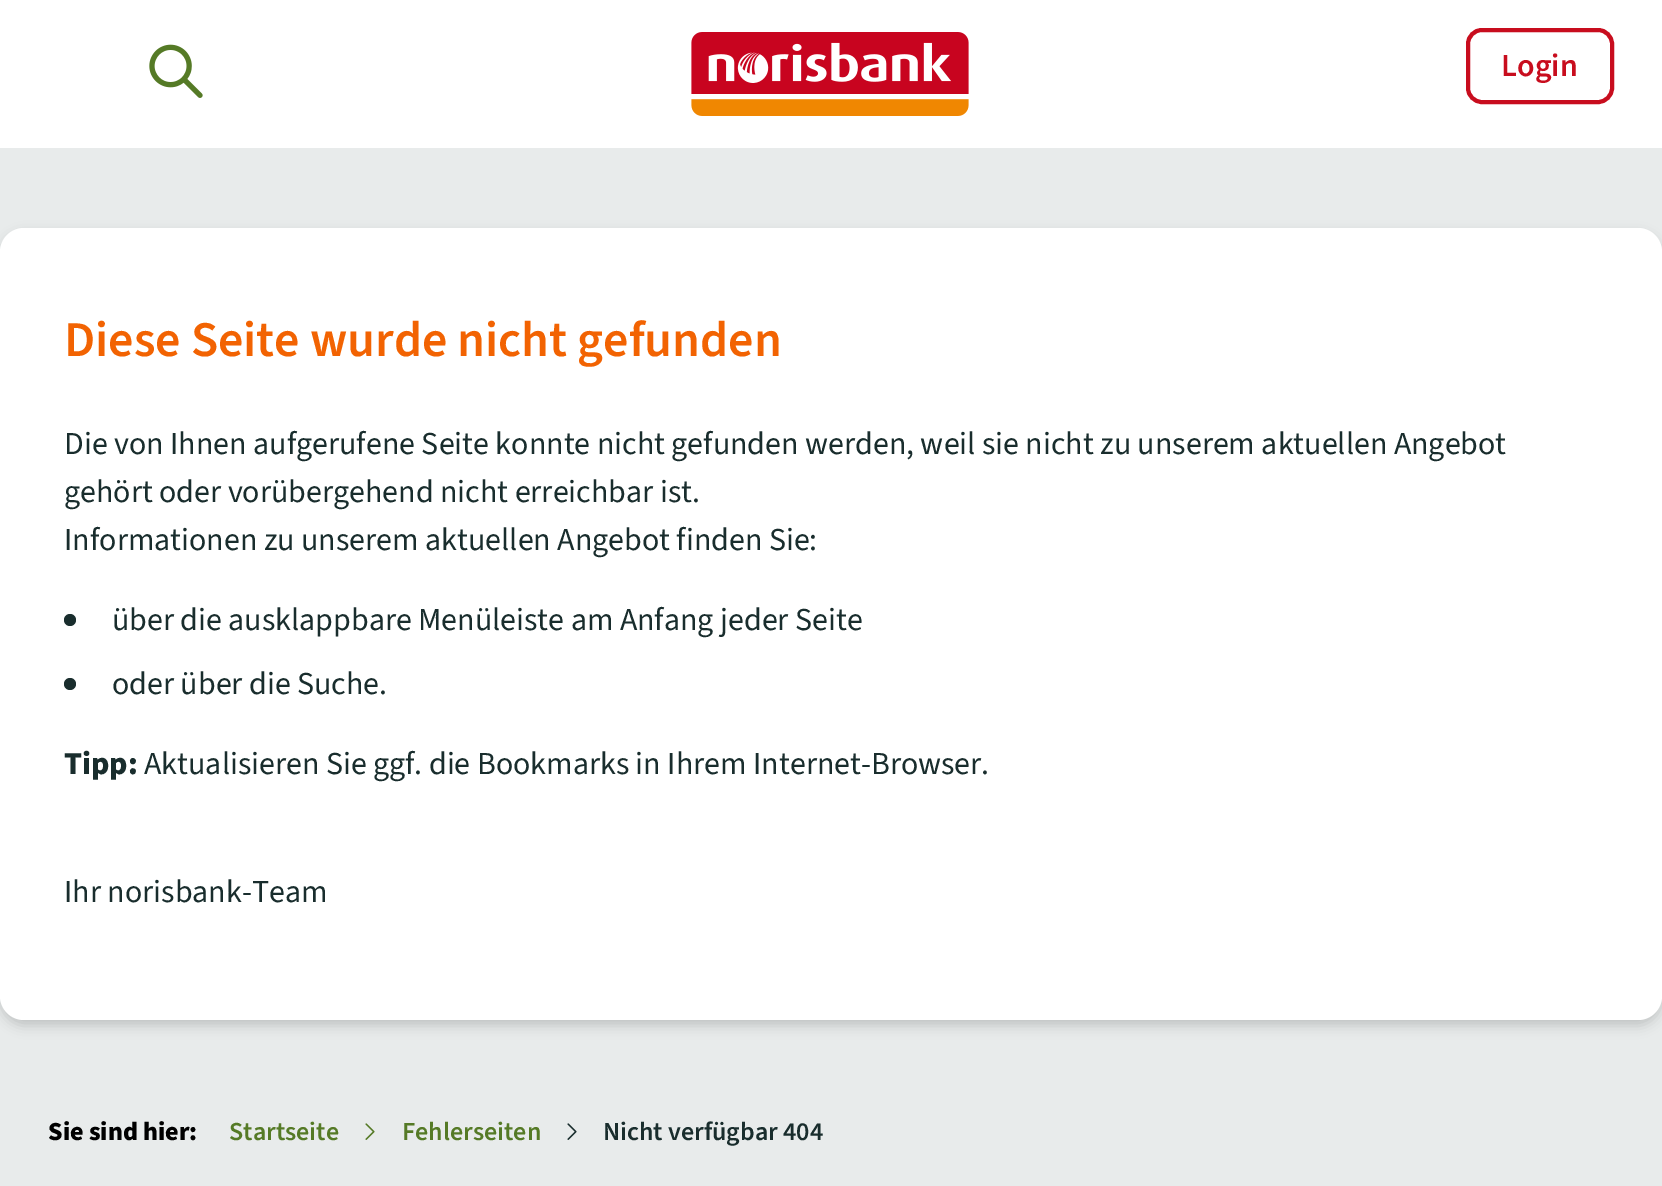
%!PS-Adobe-3.0
%%BoundingBox: 0 0 1662 1186
%%LanguageLevel: 3
%%Pages: 1
%%EndComments
%%BeginProlog
/setink { 3 { 255 div 3 1 roll } repeat setrgbcolor } def
/usefont { [ exch dup neg 0 0 3 -1 roll 0 0 ] selectfont } def
/drawtext { setink usefont moveto show } def
/fillbox { setink rectfill } def
/setalpha { dup .setfillconstantalpha .setstrokeconstantalpha } def
/disc { newpath 0 360 arc closepath } def
/rrect { 5 dict begin { /r /h /w /y /x } { exch def } forall
  x r add y moveto x w add y 2 copy h add r arct x w add y h add x 1 index r arct
  x y h add x y r arct x y 2 copy exch w add exch r arct closepath end } def
/softshadow { 12 dict begin { /a /b /q /h /w /y /x } { exch def } forall gsave /was 0 def
  9 -2 -9 { dup b mul 4 div /e exch def 1 sub .425 mul 2.718 exch exp 1 add a .99 .min exch div /now exch def
    1 1 now sub 1 was sub div sub setalpha /was now def
    w h .min e 2 mul add 0 gt { x e sub y e sub w e 2 mul add h e 2 mul add
      q e add b .6 mul add w h .min 2 div e add .min 0 .max rrect fill } if } for grestore end } def
/drawimage { 5 dict begin { /h /w /y /x /name } { exch def } forall
  gsave x y translate w h scale
  w h 8 [w 0 0 h 0 0] name (r) file false 3 colorimage grestore end } def
%%EndProlog
%%BeginSetup
<< /PageSize [1662 1186] /PageUsesTransparency true >> setpagedevice
%%EndSetup
%%Page: 1 1
0 .pushpdf14devicefilter
0 1186 translate 1 -1 scale
4 setmiterlimit
0 0 1662 1186 232 235 235 fillbox
0 0 1662 148 255 255 255 fillbox
(assets/img1.rgb) 691 32 278 84 drawimage
(assets/img2.rgb) 149 44 54 54 drawimage
200 13 30 setink
4 setlinewidth
1468 30 144 72 14 rrect stroke
(Login) 1501 76 /SourceSans3-SemiBold 32 200 13 30 drawtext
0 0 0 setink
0 234 1662 792 24 6 0.16 softshadow
255 255 255 setink
0 228 1662 792 24 rrect fill
(Diese Seite wurde nicht gefunden) 64 356 /SourceSans3-SemiBold 50 242 99 2 drawtext
(Die von Ihnen aufgerufene Seite konnte nicht gefunden werden, weil sie nicht zu unserem aktuellen Angebot) 64 454 /SourceSans3-Regular 32 25 45 45 drawtext
(gehört oder vorübergehend nicht erreichbar ist.) 64 502 /SourceSans3-Regular 32 25 45 45 drawtext
(Informationen zu unserem aktuellen Angebot finden Sie:) 64 550 /SourceSans3-Regular 32 25 45 45 drawtext
70 620 6 disc fill
(über die ausklappbare Menüleiste am Anfang jeder Seite) 112 630 /SourceSans3-Regular 32 25 45 45 drawtext
70 684 6 disc fill
(oder über die Suche.) 112 694 /SourceSans3-Regular 32 25 45 45 drawtext
(Tipp:) 64 774 /SourceSans3-ExtraBold 32 25 45 45 drawtext
(Aktualisieren Sie ggf. die Bookmarks in Ihrem Internet-Browser.) 144 774 /SourceSans3-Regular 32 25 45 45 drawtext
(Ihr norisbank-Team) 64 902 /SourceSans3-Regular 32 25 45 45 drawtext
(Sie sind hier:) 48 1140 /SourceSans3-ExtraBold 26 0 0 0 drawtext
(Startseite) 229 1140 /SourceSans3-SemiBold 26 85 122 38 drawtext
(assets/img3.rgb) 365 1123 10 17 drawimage
(Fehlerseiten) 402 1140 /SourceSans3-SemiBold 26 85 122 38 drawtext
(assets/img4.rgb) 567 1123 10 17 drawimage
(Nicht verfügbar 404) 603 1140 /SourceSans3-SemiBold 26 25 45 45 drawtext
.poppdf14devicefilter showpage
%%EOF
